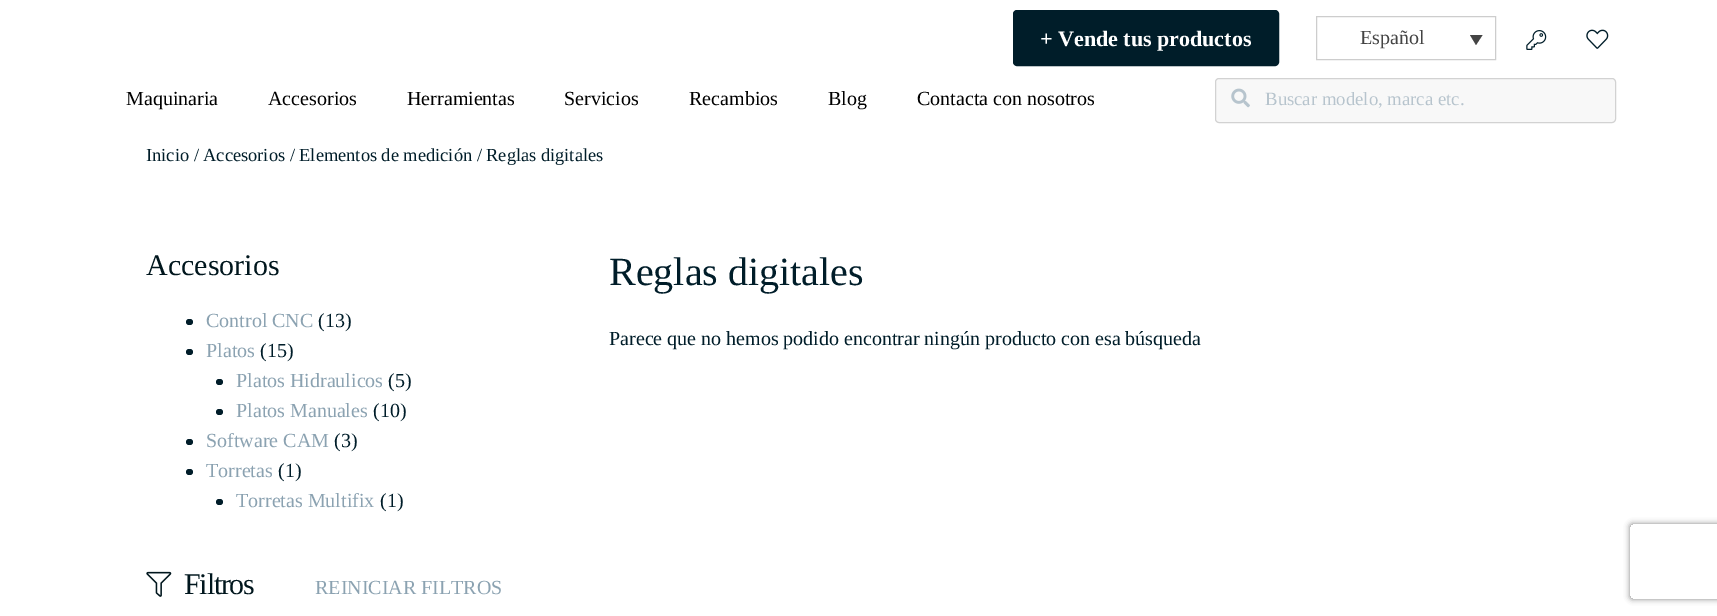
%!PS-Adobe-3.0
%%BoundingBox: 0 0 1717 616
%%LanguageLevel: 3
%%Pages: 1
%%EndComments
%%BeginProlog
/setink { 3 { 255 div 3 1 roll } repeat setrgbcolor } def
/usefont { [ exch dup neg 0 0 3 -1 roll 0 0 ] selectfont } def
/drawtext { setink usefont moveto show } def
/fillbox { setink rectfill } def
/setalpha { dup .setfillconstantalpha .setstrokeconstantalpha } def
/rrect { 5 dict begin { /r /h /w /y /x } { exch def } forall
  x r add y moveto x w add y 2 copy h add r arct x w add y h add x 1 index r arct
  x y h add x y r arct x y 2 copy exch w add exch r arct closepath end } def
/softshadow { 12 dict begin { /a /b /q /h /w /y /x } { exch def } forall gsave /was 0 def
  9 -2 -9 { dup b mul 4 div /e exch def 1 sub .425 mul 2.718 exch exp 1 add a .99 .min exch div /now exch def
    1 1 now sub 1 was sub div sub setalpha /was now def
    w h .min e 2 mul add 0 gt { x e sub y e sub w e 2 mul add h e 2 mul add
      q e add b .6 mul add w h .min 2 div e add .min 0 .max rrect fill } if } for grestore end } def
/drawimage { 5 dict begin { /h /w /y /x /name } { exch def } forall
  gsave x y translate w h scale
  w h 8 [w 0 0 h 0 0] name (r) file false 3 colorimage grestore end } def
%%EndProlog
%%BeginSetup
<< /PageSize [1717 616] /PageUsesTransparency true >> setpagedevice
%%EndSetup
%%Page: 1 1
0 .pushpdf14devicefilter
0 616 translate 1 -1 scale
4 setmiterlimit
0 0 1717 616 255 255 255 fillbox
0 29 41 setink
1014.5 11.5 263 53 2.5 rrect gsave fill grestore
3 setlinewidth
stroke
(+ Vende tus productos) 1040 46 /LiberationSerif-Bold 22 255 255 255 drawtext
205 205 205 setink
1 setlinewidth
1316.5 16.5 179 43 rectstroke
(Español) 1360 44 /LiberationSerif-Regular 20 68 68 68 drawtext
1470 35 moveto 1482.5 35 lineto 1476 45 lineto closepath fill
(assets/img1.rgb) 1526 30 21 20 drawimage
(assets/img2.rgb) 1586 29 23 20 drawimage
(Maquinaria) 126 105 /LiberationSerif-Regular 20 0 0 0 drawtext
(Accesorios) 268 105 /LiberationSerif-Regular 20 0 0 0 drawtext
(Herramientas) 407 105 /LiberationSerif-Regular 20 0 0 0 drawtext
(Servicios) 564 105 /LiberationSerif-Regular 20 0 0 0 drawtext
(Recambios) 689 105 /LiberationSerif-Regular 20 0 0 0 drawtext
(Blog) 828 105 /LiberationSerif-Regular 20 0 0 0 drawtext
(Contacta con nosotros) 917 105 /LiberationSerif-Regular 20 0 0 0 drawtext
248 248 248 setink
1215.5 78.5 400 44 3.5 rrect gsave fill grestore
210 210 210 setink
stroke
(assets/img3.rgb) 1231 88 19 20 drawimage
(Buscar modelo, marca etc.) 1265 105 /LiberationSerif-Regular 18.75 183 196 205 drawtext
(Inicio / Accesorios / Elementos de medición / Reglas digitales) 146 161 /LiberationSerif-Regular 18.4 0 29 41 drawtext
(Accesorios) 146 275 /LiberationSerif-Regular 30 0 22 29 drawtext
0 29 41 setink
186 319 7 6 3 rrect fill
(Control CNC) 206 327 /LiberationSerif-Regular 20 139 162 177 drawtext
(\(13\)) 318 327 /LiberationSerif-Regular 20 0 29 41 drawtext
186 349 7 6 3 rrect fill
(Platos) 206 357 /LiberationSerif-Regular 20 139 162 177 drawtext
(\(15\)) 260 357 /LiberationSerif-Regular 20 0 29 41 drawtext
216 379 7 6 3 rrect fill
(Platos Hidraulicos) 236 387 /LiberationSerif-Regular 20 139 162 177 drawtext
(\(5\)) 388 387 /LiberationSerif-Regular 20 0 29 41 drawtext
216 409 7 6 3 rrect fill
(Platos Manuales) 236 417 /LiberationSerif-Regular 20 139 162 177 drawtext
(\(10\)) 373 417 /LiberationSerif-Regular 20 0 29 41 drawtext
186 439 7 6 3 rrect fill
(Software CAM) 206 447 /LiberationSerif-Regular 20 139 162 177 drawtext
(\(3\)) 334 447 /LiberationSerif-Regular 20 0 29 41 drawtext
186 469 7 6 3 rrect fill
(Torretas) 206 477 /LiberationSerif-Regular 20 139 162 177 drawtext
(\(1\)) 278 477 /LiberationSerif-Regular 20 0 29 41 drawtext
216 499 7 6 3 rrect fill
(Torretas Multifix) 236 507 /LiberationSerif-Regular 20 139 162 177 drawtext
(\(1\)) 380 507 /LiberationSerif-Regular 20 0 29 41 drawtext
(assets/img4.rgb) 146 571 26 26 drawimage
/LiberationSerif-Regular 30 usefont
0 22 29 setink
184 594 moveto -1.25 0 (Filtros) ashow
(REINICIAR FILTROS) 315 594 /LiberationSerif-Regular 20 139 162 177 drawtext
(Reglas digitales) 609 285 /LiberationSerif-Regular 40 0 29 41 drawtext
(Parece que no hemos podido encontrar ningún producto con esa búsqueda) 609 345 /LiberationSerif-Regular 20 0 29 41 drawtext
gsave
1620 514 moveto 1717 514 lineto 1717 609 lineto 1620 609 lineto closepath 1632.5 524 moveto 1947.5 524 lineto 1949 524 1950 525 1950 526.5 curveto 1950 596.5 lineto 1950 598 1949 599 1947.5 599 curveto 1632.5 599 lineto 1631 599 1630 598 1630 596.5 curveto 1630 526.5 lineto 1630 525 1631 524 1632.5 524 curveto closepath eoclip newpath
128 128 128 setink
1630 524 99 75 2.5 3 1 softshadow
grestore
.poppdf14devicefilter showpage
%%EOF
